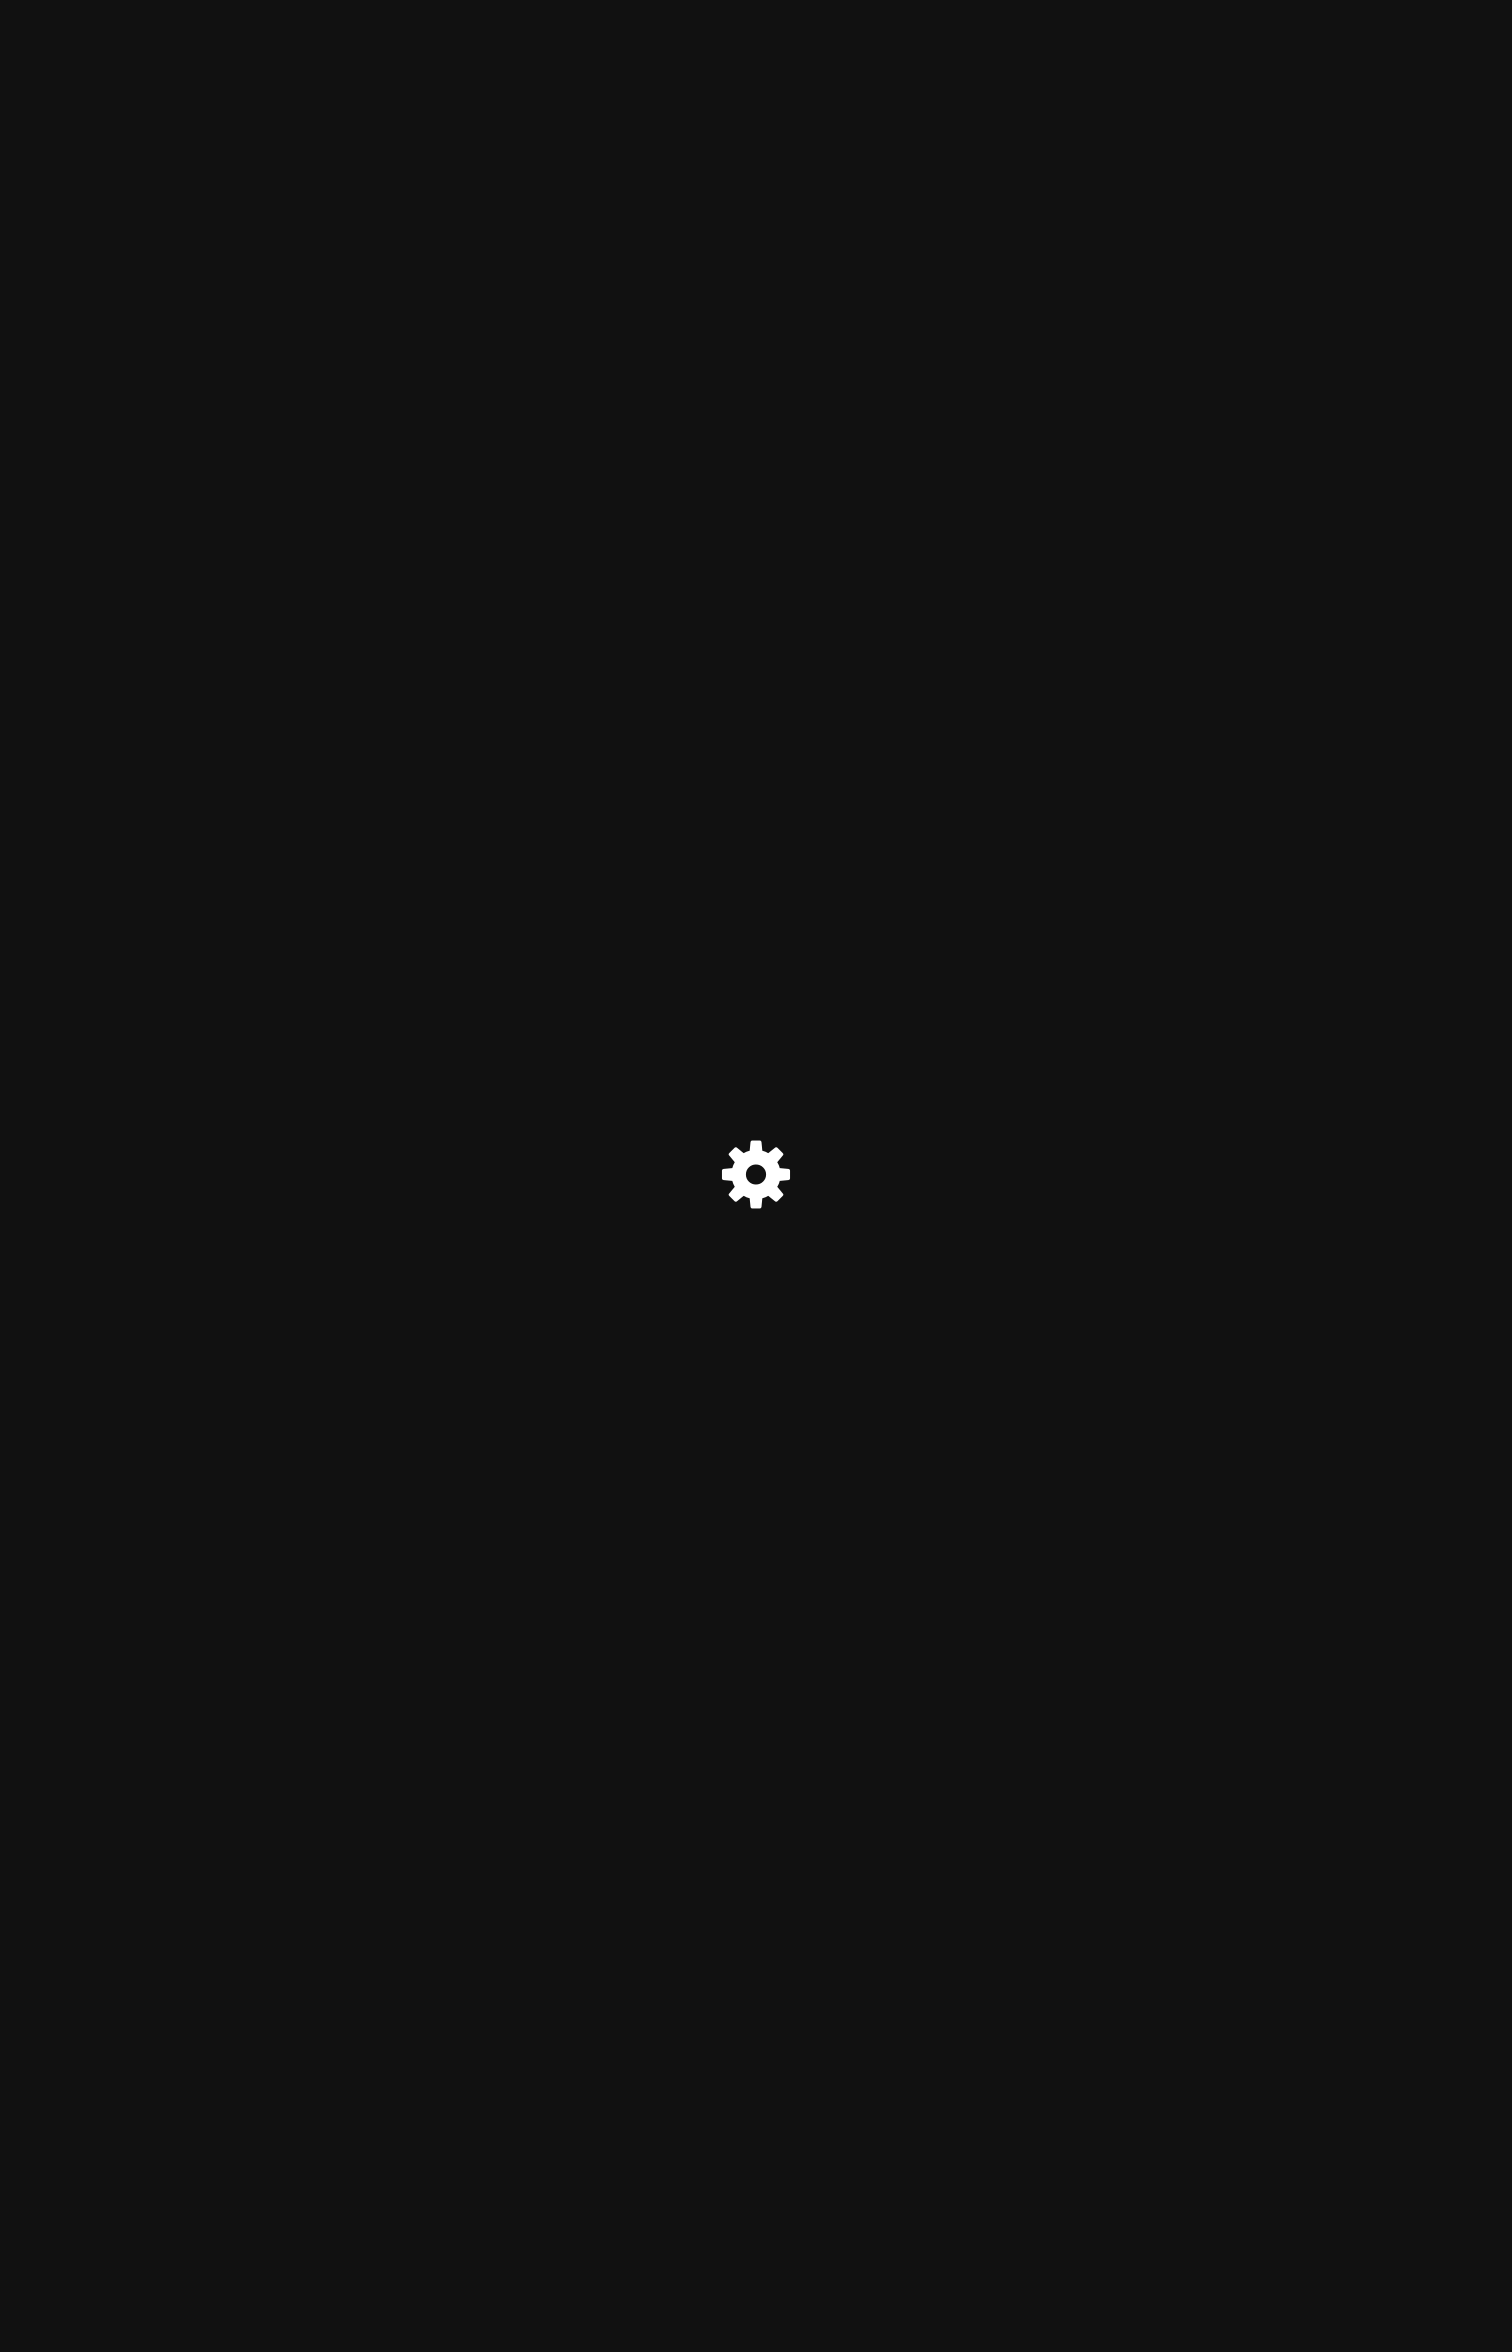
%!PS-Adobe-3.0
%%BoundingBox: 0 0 1512 2352
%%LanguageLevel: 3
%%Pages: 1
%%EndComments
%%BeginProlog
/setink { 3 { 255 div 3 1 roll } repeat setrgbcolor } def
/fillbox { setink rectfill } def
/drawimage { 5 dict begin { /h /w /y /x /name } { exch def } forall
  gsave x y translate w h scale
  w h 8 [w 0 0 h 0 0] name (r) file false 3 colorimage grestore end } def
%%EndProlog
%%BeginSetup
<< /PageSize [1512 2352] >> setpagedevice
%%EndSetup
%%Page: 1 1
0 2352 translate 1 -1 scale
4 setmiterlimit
0 0 1512 2352 17 17 17 fillbox
(assets/img1.rgb) 721 1140 70 69 drawimage
showpage
%%EOF
